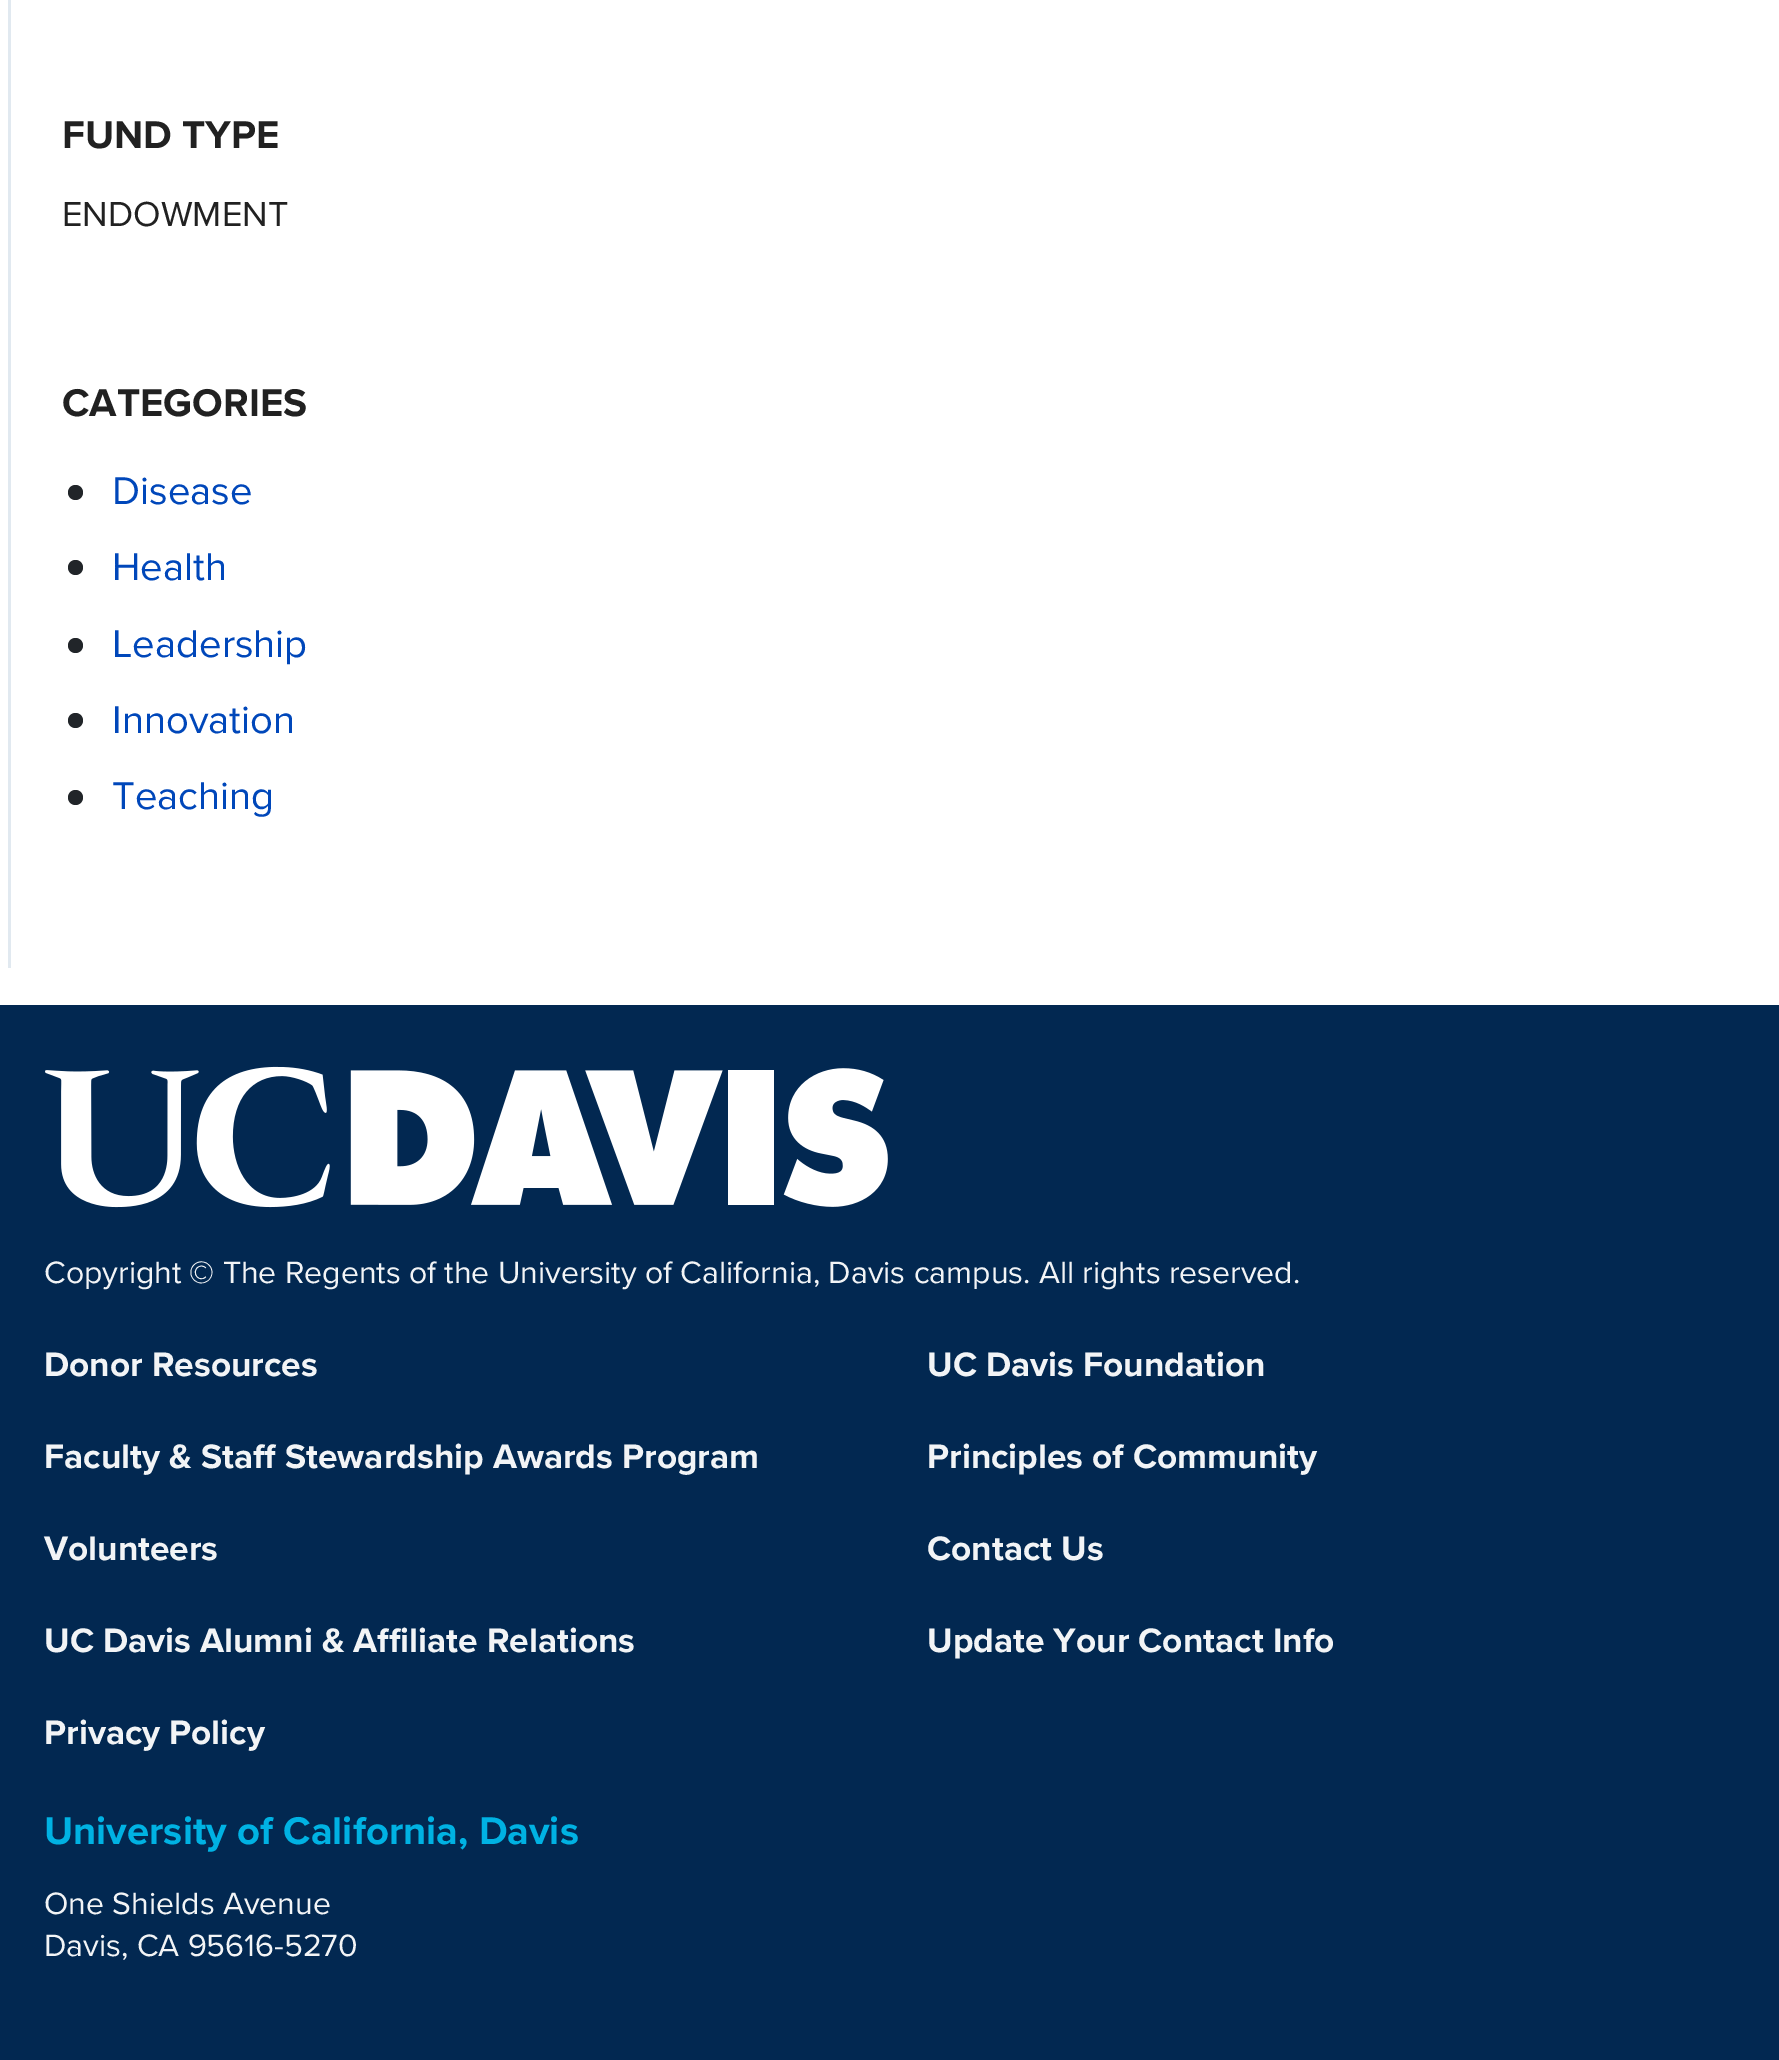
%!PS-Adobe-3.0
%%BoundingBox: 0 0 1779 2060
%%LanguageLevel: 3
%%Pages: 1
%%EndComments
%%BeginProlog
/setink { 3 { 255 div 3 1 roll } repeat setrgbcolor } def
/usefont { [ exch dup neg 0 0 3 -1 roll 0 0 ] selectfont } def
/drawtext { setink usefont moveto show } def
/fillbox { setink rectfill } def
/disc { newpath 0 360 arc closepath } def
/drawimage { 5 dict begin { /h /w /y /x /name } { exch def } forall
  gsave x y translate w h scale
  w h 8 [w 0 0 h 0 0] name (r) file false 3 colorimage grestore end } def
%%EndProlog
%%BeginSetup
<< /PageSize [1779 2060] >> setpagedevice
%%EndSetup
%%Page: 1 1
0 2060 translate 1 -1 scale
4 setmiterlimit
0 0 1779 2060 255 255 255 fillbox
8 0 3 968 225 233 240 fillbox
(FUND TYPE) 62 148 /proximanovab-Bold 40 33 33 33 drawtext
(ENDOWMENT) 62 226 /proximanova-Regular 36 33 33 33 drawtext
(CATEGORIES) 62 416 /proximanovab-Bold 40 33 33 33 drawtext
33 37 41 setink
75.5 492.5 7.5 disc fill
(Disease) 112 504 /proximanova-Regular 40 0 71 186 drawtext
33 37 41 setink
75.5 567.5 7.5 disc fill
(Health) 112 580 /proximanova-Regular 40 0 71 186 drawtext
33 37 41 setink
75.5 645.5 7.5 disc fill
(Leadership) 112 657 /proximanova-Regular 40 0 71 186 drawtext
33 37 41 setink
75.5 720.5 7.5 disc fill
(Innovation) 112 733 /proximanova-Regular 40 0 71 186 drawtext
33 37 41 setink
75.5 797.5 7.5 disc fill
(Teaching) 112 809 /proximanova-Regular 40 0 71 186 drawtext
0 1005 1779 1055 2 40 81 fillbox
(assets/img1.rgb) 45 1066 843 142 drawimage
(Copyright © The Regents of the University of California, Davis campus. All rights reserved.) 44 1283 /proximanova-Regular 32 242 244 246 drawtext
(Donor Resources) 44 1376 /proximanovab-Bold 35.2 242 244 246 drawtext
(Faculty & Staff Stewardship Awards Program) 44 1468 /proximanovab-Bold 35.2 242 244 246 drawtext
(Volunteers) 44 1560 /proximanovab-Bold 35.2 242 244 246 drawtext
(UC Davis Alumni & Affiliate Relations) 44 1652 /proximanovab-Bold 35.2 242 244 246 drawtext
(Privacy Policy) 44 1744 /proximanovab-Bold 35.2 242 244 246 drawtext
(UC Davis Foundation) 927 1376 /proximanovab-Bold 35.2 242 244 246 drawtext
(Principles of Community) 927 1468 /proximanovab-Bold 35.2 242 244 246 drawtext
(Contact Us) 927 1560 /proximanovab-Bold 35.2 242 244 246 drawtext
(Update Your Contact Info) 927 1652 /proximanovab-Bold 35.2 242 244 246 drawtext
(University of California, Davis) 44 1844 /proximanovab-Bold 40 0 178 227 drawtext
(One Shields Avenue) 44 1914 /proximanova-Regular 32 242 244 246 drawtext
(Davis, CA 95616-5270) 44 1956 /proximanova-Regular 32 242 244 246 drawtext
showpage
%%EOF
